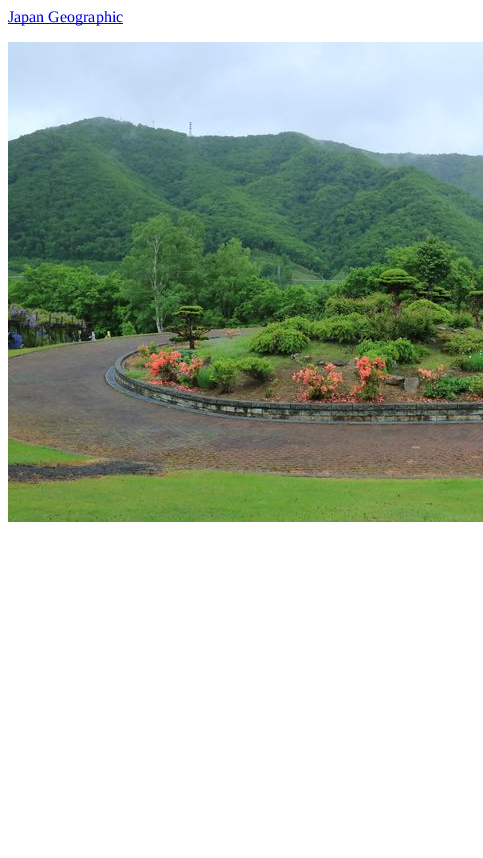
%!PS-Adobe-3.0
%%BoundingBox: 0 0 483 858
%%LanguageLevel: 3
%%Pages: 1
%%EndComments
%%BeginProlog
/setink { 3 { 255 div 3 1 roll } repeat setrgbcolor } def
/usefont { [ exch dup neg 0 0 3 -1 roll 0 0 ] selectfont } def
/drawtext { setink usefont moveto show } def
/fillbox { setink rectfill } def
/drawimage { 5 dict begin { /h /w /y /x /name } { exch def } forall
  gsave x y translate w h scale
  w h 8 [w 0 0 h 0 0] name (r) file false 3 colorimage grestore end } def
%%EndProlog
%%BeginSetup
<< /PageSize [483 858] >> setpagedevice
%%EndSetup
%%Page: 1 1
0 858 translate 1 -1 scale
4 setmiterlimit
0 0 483 858 255 255 255 fillbox
8 23 115 1 0 0 238 fillbox
(Japan Geographic) 8 22 /LiberationSerif-Regular 16 0 0 238 drawtext
(assets/img1.rgb) 8 42 475 480 drawimage
showpage
%%EOF
